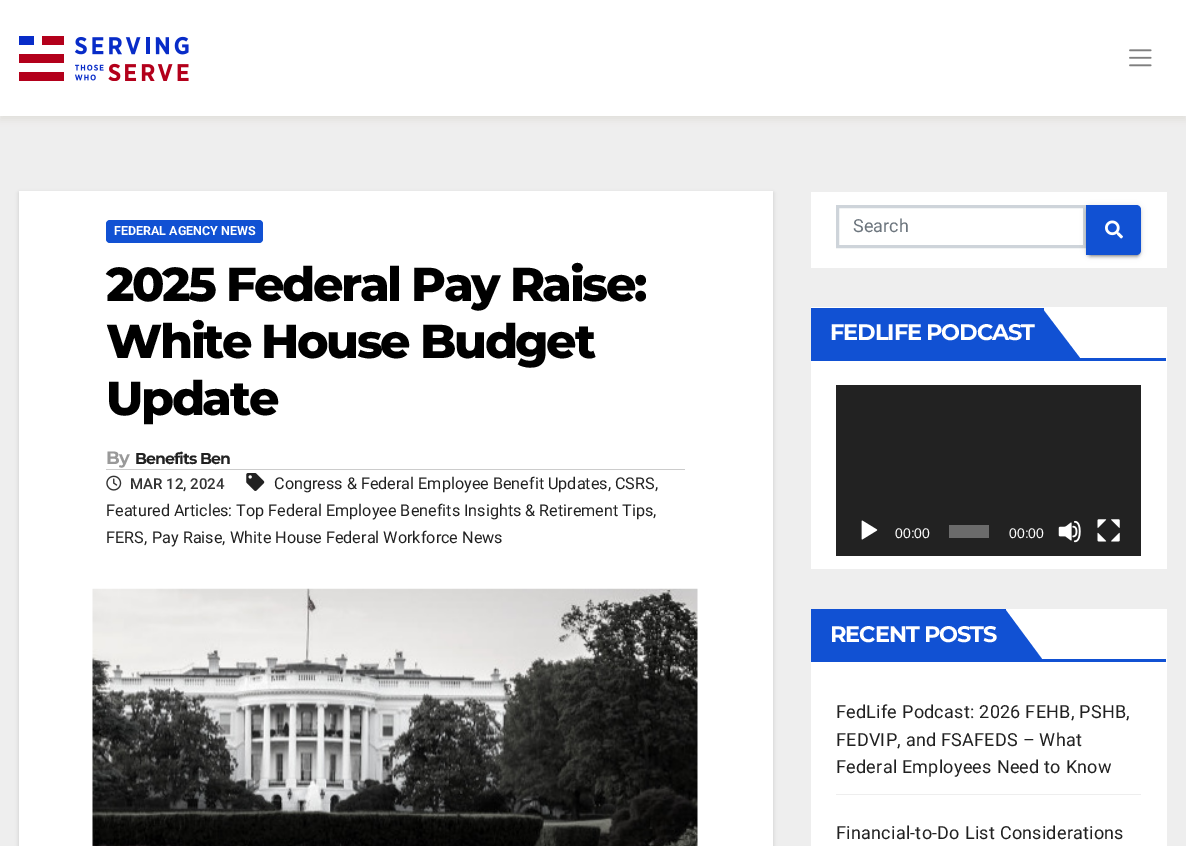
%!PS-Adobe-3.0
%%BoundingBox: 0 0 1186 846
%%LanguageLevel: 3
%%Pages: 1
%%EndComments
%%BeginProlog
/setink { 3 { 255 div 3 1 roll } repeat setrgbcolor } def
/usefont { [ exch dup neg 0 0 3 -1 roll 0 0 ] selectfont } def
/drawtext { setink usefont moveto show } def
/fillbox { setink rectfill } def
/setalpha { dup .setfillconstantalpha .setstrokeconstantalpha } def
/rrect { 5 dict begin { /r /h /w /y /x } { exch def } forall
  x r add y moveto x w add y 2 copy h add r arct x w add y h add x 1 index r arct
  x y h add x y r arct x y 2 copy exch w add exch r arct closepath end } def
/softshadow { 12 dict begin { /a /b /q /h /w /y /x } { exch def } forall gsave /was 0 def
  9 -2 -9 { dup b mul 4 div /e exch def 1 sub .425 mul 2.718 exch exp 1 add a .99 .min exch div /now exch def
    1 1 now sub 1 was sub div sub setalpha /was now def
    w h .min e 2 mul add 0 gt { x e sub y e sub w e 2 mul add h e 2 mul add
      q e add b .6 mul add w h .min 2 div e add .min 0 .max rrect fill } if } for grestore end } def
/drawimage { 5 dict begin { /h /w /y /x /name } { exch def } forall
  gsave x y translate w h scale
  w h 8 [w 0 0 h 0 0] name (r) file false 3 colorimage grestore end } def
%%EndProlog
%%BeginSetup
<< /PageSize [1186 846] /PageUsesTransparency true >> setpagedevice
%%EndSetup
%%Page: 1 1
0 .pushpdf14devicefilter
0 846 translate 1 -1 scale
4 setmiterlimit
0 0 1186 846 238 238 238 fillbox
196 188 176 setink
0 4 1186 116 0 4 0.3 softshadow
0 0 1186 116 255 255 255 fillbox
(assets/img1.rgb) 19 36 170 45 drawimage
(assets/img2.rgb) 1129 49 23 18 drawimage
0 0 0 setink
19 193 754 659 0 2 0.15 softshadow
19 191 754 655 255 255 255 fillbox
17 81 211 setink
106 220 157 23 4 rrect fill
(FEDERAL AGENCY NEWS) 114 235 /Roboto-Bold 12.5 255 255 255 drawtext
/Montserrat-ExtraBold 47.5 usefont
0 0 0 setink
106 301 moveto -2.4 0 (2025 Federal Pay Raise:) ashow
106 358 moveto -2.4 0 (White House Budget) ashow
106 415 moveto -2.4 0 (Update) ashow
106 469 579 1 204 204 204 fillbox
/Montserrat-Bold 18 usefont
153 153 153 setink
106 464 moveto -0.9 0 (By) ashow
/Montserrat-Bold 15.75 usefont
33 33 33 setink
135 464 moveto -0.9 0 (Benefits Ben) ashow
(assets/img3.rgb) 246 473 19 18 drawimage
(Congress & Federal Employee Benefit Updates, CSRS,) 274 489 /Roboto-Regular 16.2 33 33 33 drawtext
(Featured Articles: Top Federal Employee Benefits Insights & Retirement Tips,) 106 516 /Roboto-Regular 16.2 33 33 33 drawtext
(FERS,) 106 543 /Roboto-Regular 16.2 33 33 33 drawtext
(Pay Raise,) 152 543 /Roboto-Regular 16.2 33 33 33 drawtext
(White House Federal Workforce News) 230 543 /Roboto-Regular 16.2 33 33 33 drawtext
(assets/img4.rgb) 106 475 16 16 drawimage
(MAR 12, 2024) 130 489 /Roboto-Medium 15 51 51 51 drawtext
(assets/img5.rgb) 92 588 606 258 drawimage
811 192 356 76 255 255 255 fillbox
206 212 218 setink
3 setlinewidth
837.5 206.5 247 40 rectstroke
(Search) 853 232 /Roboto-Regular 18 108 117 125 drawtext
0 0 0 setink
1086 206 55 50 5 3 0.12 softshadow
1089 211 50 45 2.5 0.5 0.2 softshadow
1086 208 55 50 5 1 0.14 softshadow
17 81 211 setink
1086 205 moveto 1136 205 lineto 1139 205 1141 207 1141 210 curveto 1141 250 lineto 1141 253 1139 255 1136 255 curveto 1086 255 lineto closepath fill
(assets/img6.rgb) 1105 220 18 19 drawimage
811 307 356 262 255 255 255 fillbox
811 358 355 3 17 81 211 fillbox
811 308 233 50 17 81 211 fillbox
/Montserrat-Bold 22.5 usefont
255 255 255 setink
830 340 moveto -1.1 0 (FEDLIFE PODCAST) ashow
17 81 211 setink
1042 358 moveto 1042 308 lineto 1080 358 lineto closepath fill
836 385 305 171 34 34 34 fillbox
(assets/img7.rgb) 861 520 17 20 drawimage
(00:00) 895 538 /LiberationSans-Regular 14 255 255 255 drawtext
949 525 40 13 107 107 107 fillbox
(00:00) 1009 538 /LiberationSans-Regular 14 255 255 255 drawtext
(assets/img8.rgb) 1058 520 23 23 drawimage
(assets/img9.rgb) 1097 519 23 23 drawimage
811 609 356 237 255 255 255 fillbox
811 659 355 3 17 81 211 fillbox
811 609 195 50 17 81 211 fillbox
/Montserrat-Bold 22.5 usefont
255 255 255 setink
830 642 moveto -1.1 0 (RECENT POSTS) ashow
17 81 211 setink
1005 659 moveto 1005 609 lineto 1042 659 lineto closepath fill
836 794 305 1 238 238 238 fillbox
/Roboto-Regular 18 usefont
33 33 33 setink
836 718 moveto 0.25 0 (FedLife Podcast: 2026 FEHB, PSHB,) ashow
836 746 moveto 0.25 0 (FEDVIP, and FSAFEDS – What) ashow
836 773 moveto 0.25 0 (Federal Employees Need to Know) ashow
836 839 moveto 0.25 0 (Financial-to-Do List Considerations) ashow
.poppdf14devicefilter showpage
%%EOF
